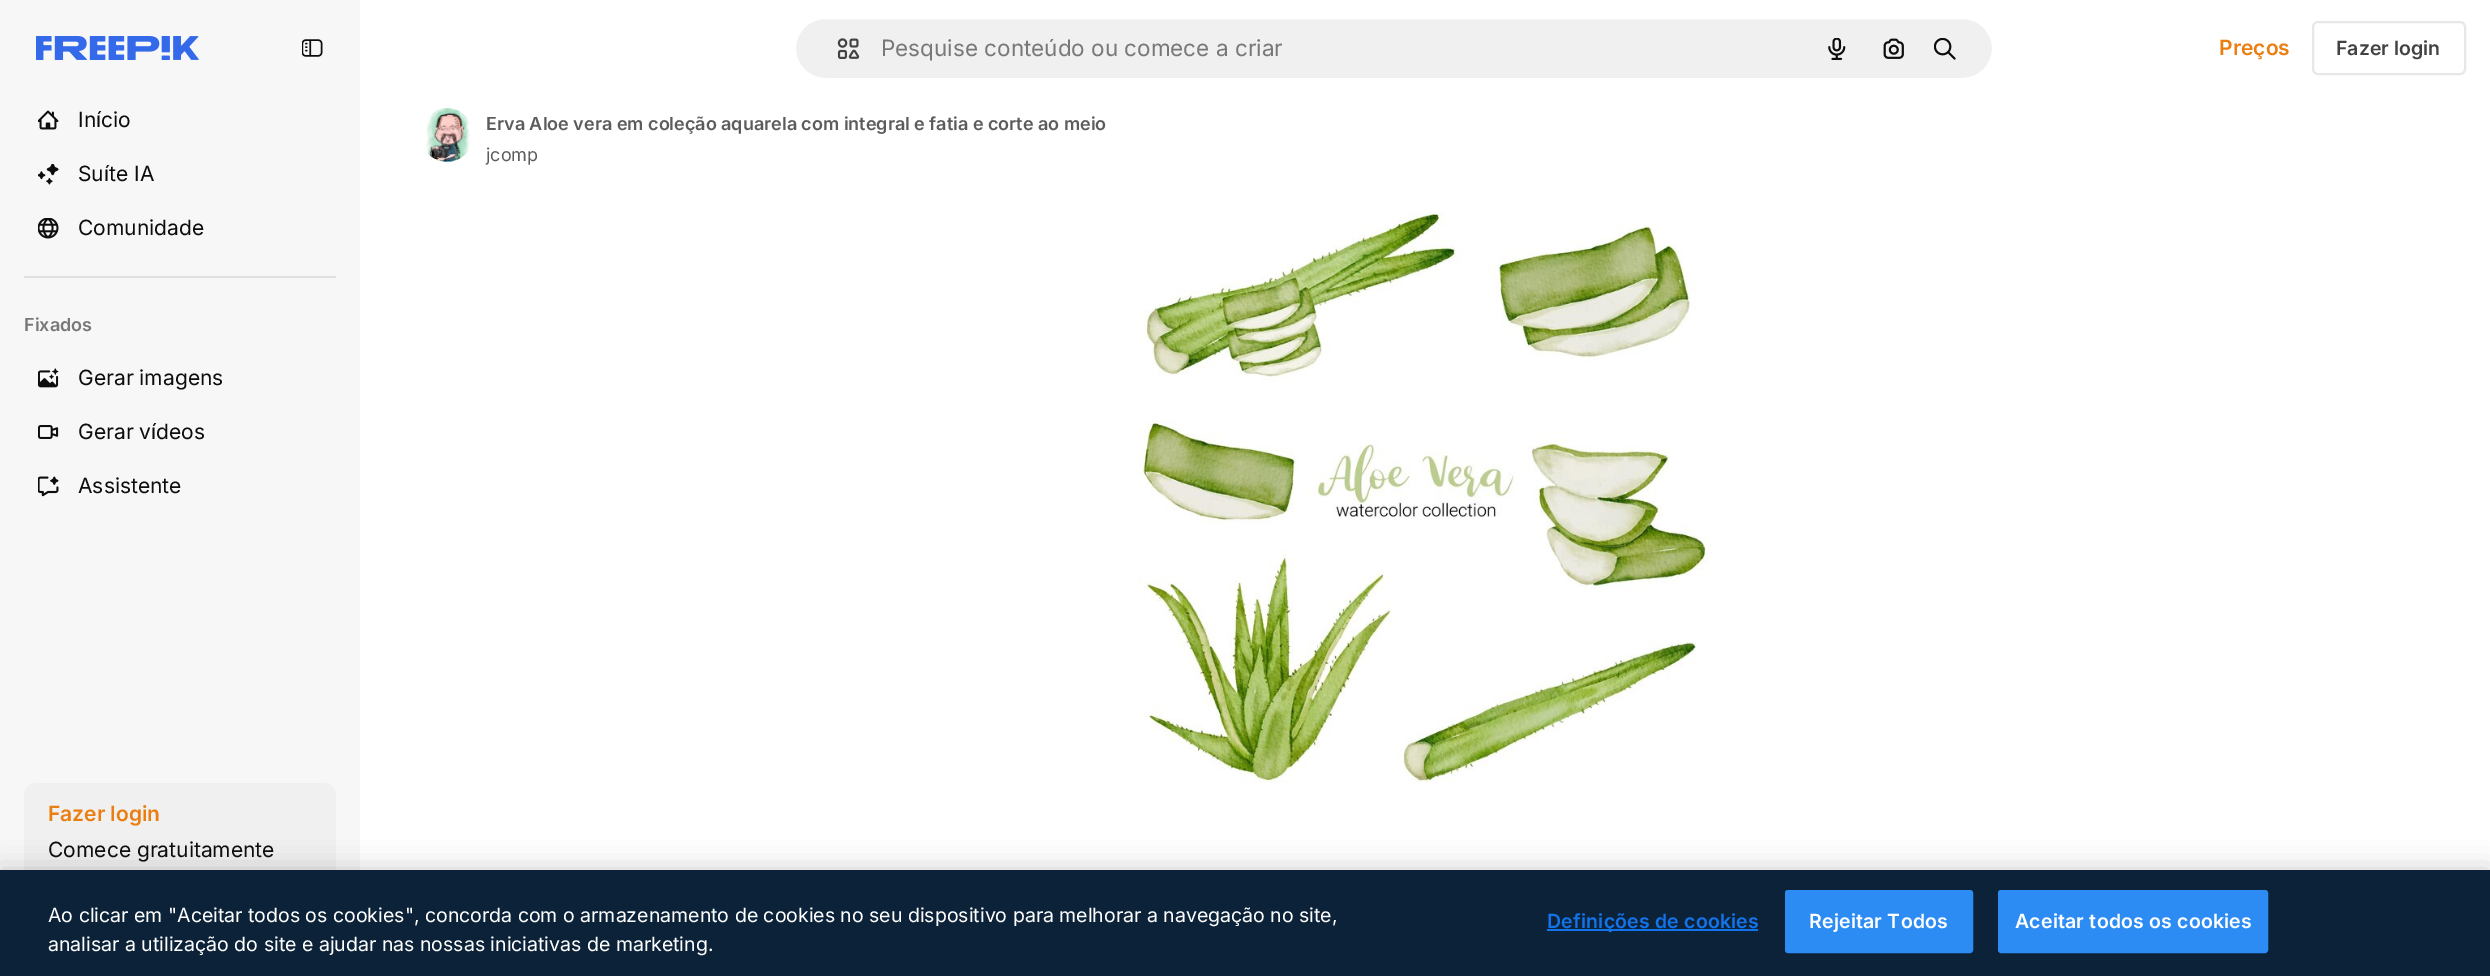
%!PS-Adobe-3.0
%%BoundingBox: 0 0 2490 976
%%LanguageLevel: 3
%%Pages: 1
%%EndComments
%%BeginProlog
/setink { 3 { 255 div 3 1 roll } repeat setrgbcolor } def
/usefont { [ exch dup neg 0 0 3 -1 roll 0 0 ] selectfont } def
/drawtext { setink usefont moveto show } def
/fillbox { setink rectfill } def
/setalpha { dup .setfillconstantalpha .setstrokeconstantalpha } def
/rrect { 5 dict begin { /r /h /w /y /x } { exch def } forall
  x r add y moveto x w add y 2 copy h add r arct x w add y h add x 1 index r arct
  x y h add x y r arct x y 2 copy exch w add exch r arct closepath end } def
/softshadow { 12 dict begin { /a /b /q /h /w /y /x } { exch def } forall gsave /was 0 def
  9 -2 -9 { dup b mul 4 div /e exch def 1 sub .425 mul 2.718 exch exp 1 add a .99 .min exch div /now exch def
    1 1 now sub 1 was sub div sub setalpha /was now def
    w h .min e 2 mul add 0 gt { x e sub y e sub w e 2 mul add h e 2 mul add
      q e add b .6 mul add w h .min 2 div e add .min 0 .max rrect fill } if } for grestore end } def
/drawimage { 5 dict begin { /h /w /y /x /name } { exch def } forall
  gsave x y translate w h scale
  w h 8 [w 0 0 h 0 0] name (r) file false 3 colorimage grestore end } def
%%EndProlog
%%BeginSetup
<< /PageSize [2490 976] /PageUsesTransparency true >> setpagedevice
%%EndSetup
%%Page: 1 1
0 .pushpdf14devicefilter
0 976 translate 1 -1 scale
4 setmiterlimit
0 0 2490 976 255 255 255 fillbox
0 0 360 870 247 247 247 fillbox
(assets/img1.rgb) 36 36 163 24 drawimage
(assets/img2.rgb) 302 39 21 18 drawimage
(assets/img3.rgb) 38 110 21 20 drawimage
(Início) 78 127 /Inter-Regular 21 13 13 13 drawtext
(assets/img4.rgb) 38 164 21 21 drawimage
(Suíte IA) 78 181 /Inter-Regular 21 13 13 13 drawtext
(assets/img5.rgb) 38 218 21 21 drawimage
(Comunidade) 78 235 /Inter-Regular 21 13 13 13 drawtext
24 276 312 2 224 224 224 fillbox
(Fixados) 24 331 /Inter-SemiBold 18 120 120 120 drawtext
(assets/img6.rgb) 38 368 21 20 drawimage
(Gerar imagens) 78 385 /Inter-Regular 21 13 13 13 drawtext
(assets/img7.rgb) 38 425 21 14 drawimage
(Gerar vídeos) 78 439 /Inter-Regular 21 13 13 13 drawtext
(assets/img8.rgb) 38 476 21 21 drawimage
(Assistente) 78 493 /Inter-Regular 21 13 13 13 drawtext
240 240 240 setink
24 783 312 98 12 rrect fill
(Fazer login) 48 821 /Inter-SemiBold 21 234 126 17 drawtext
(Comece gratuitamente) 48 857 /Inter-Regular 21 13 13 13 drawtext
240 240 240 setink
795 18 1198 61 30.5 rrect gsave fill grestore
255 255 255 setink
2 setlinewidth
stroke
(assets/img9.rgb) 837 38 23 21 drawimage
(Pesquise conteúdo ou comece a criar) 881 56 /Inter-Regular 22.5 120 120 120 drawtext
(assets/img10.rgb) 1828 38 18 22 drawimage
(assets/img11.rgb) 1883 38 21 21 drawimage
(assets/img12.rgb) 1934 38 22 22 drawimage
(Preços) 2219 55 /Inter-SemiBold 21 234 126 17 drawtext
231 231 231 setink
2313 22 152 52 5 rrect stroke
(Fazer login) 2336 55 /Inter-SemiBold 19.5 66 66 66 drawtext
(assets/img13.rgb) 426 108 44 54 drawimage
(Erva Aloe vera em coleção aquarela com integral e fatia e corte ao meio) 486 130 /Inter-SemiBold 18 92 92 92 drawtext
(jcomp) 486 161 /Inter-Regular 18 92 92 92 drawtext
(assets/img14.rgb) 1138 212 571 571 drawimage
0 0 0 setink
0 870 2490 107 0 13.5 0.2 softshadow
0 870 2490 106 11 34 57 fillbox
(Ao clicar em "Aceitar todos os cookies", concorda com o armazenamento de cookies no seu dispositivo para melhorar a navegação no site,) 48 922 /Inter-Regular 19.5 255 255 255 drawtext
(analisar a utilização do site e ajudar nas nossas iniciativas de marketing.) 48 951 /Inter-Regular 19.5 255 255 255 drawtext
1547 929 211 2 18 115 235 fillbox
/Inter-SemiBold 19.5 usefont
1547 928 moveto 0.2 0 (Definições de cookies) ashow
44 140 244 setink
1786 891 186 61 2 rrect gsave fill grestore
stroke
255 255 255 setink
1809 928 moveto 0.2 0 (Rejeitar Todos) ashow
44 140 244 setink
1999 891 268 61 2 rrect gsave fill grestore
stroke
255 255 255 setink
2015 928 moveto 0.2 0 (Aceitar todos os cookies) ashow
.poppdf14devicefilter showpage
%%EOF
